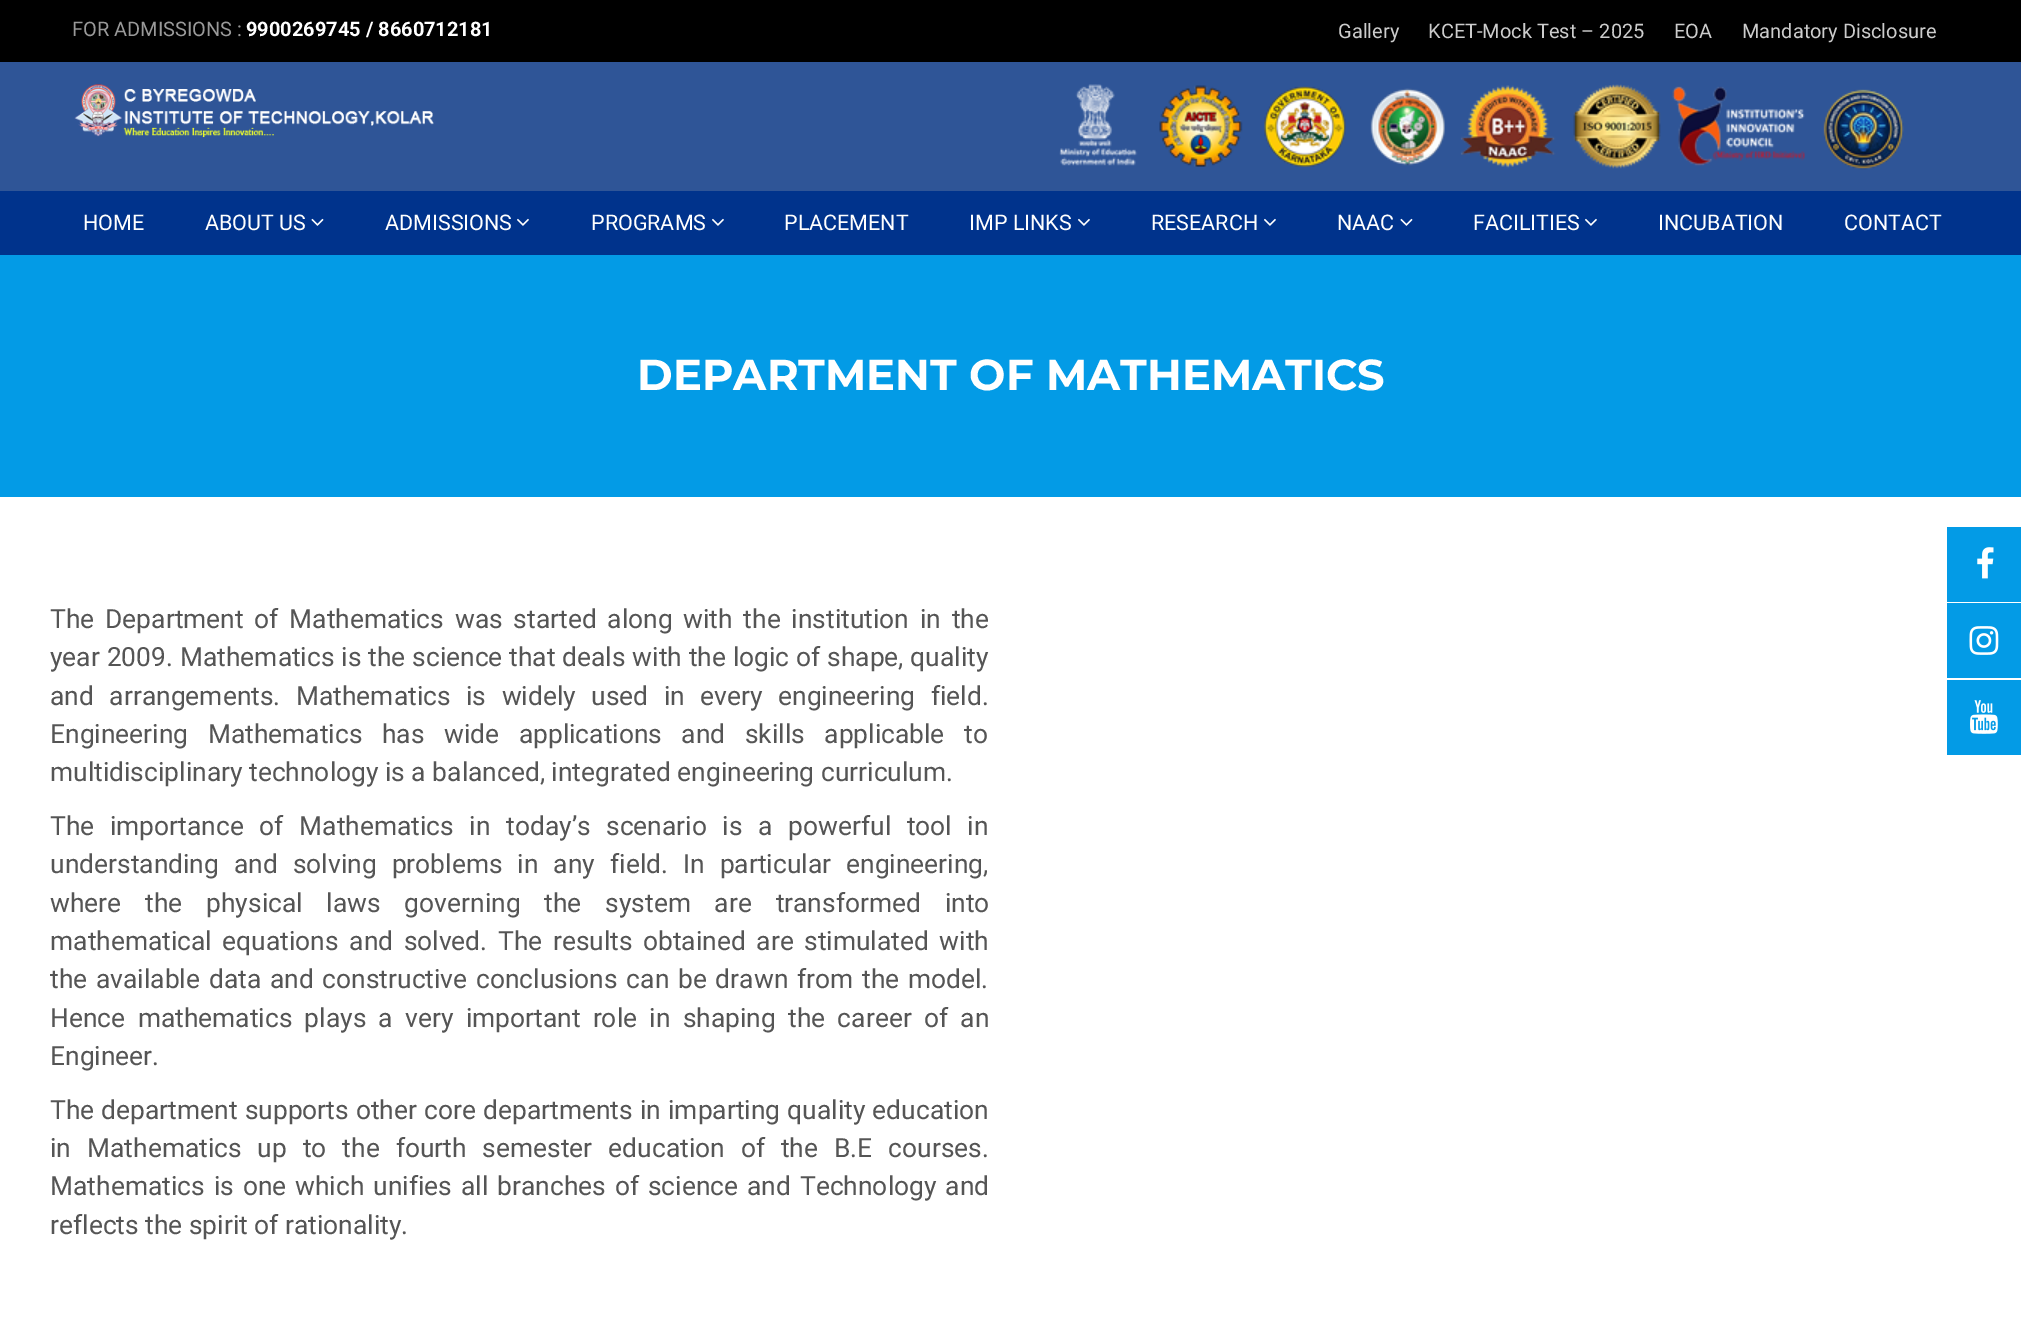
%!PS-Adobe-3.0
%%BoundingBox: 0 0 2021 1317
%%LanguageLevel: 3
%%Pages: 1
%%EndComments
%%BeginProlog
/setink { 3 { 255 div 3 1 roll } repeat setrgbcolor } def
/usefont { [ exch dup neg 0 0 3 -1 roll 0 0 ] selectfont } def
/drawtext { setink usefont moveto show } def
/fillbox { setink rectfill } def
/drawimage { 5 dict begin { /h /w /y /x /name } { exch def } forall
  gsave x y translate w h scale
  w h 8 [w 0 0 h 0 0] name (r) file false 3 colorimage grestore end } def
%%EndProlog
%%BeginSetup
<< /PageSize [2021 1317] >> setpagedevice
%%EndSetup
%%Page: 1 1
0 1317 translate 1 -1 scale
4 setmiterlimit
0 0 2021 1317 255 255 255 fillbox
0 0 2021 62 0 0 0 fillbox
(FOR ADMISSIONS :) 72 36 /Roboto-Regular 20 153 153 153 drawtext
(9900269745 / 8660712181) 246 36 /Roboto-Bold 20 255 255 255 drawtext
(Gallery) 1338 38 /Roboto-Regular 20 204 204 204 drawtext
(KCET-Mock Test – 2025) 1428 38 /Roboto-Regular 20 204 204 204 drawtext
(EOA) 1674 38 /Roboto-Regular 20 204 204 204 drawtext
(Mandatory Disclosure) 1742 38 /Roboto-Regular 20 204 204 204 drawtext
0 62 2021 129 47 85 151 fillbox
(assets/img1.rgb) 74 84 360 54 drawimage
(assets/img2.rgb) 1059 84 845 86 drawimage
0 191 2021 64 0 51 140 fillbox
(HOME) 83 230 /Roboto-Regular 21.5 255 255 255 drawtext
(ABOUT US) 205 230 /Roboto-Regular 21.5 255 255 255 drawtext
(assets/img3.rgb) 311 218 13 8 drawimage
(ADMISSIONS) 385 230 /Roboto-Regular 21.5 255 255 255 drawtext
(assets/img4.rgb) 517 218 12 8 drawimage
(PROGRAMS) 591 230 /Roboto-Regular 21.5 255 255 255 drawtext
(assets/img4.rgb) 712 218 12 8 drawimage
(PLACEMENT) 784 230 /Roboto-Regular 21.5 255 255 255 drawtext
(IMP LINKS) 969 230 /Roboto-Regular 21.5 255 255 255 drawtext
(assets/img4.rgb) 1078 218 12 8 drawimage
(RESEARCH) 1151 230 /Roboto-Regular 21.5 255 255 255 drawtext
(assets/img4.rgb) 1264 218 12 8 drawimage
(NAAC) 1337 230 /Roboto-Regular 21.5 255 255 255 drawtext
(assets/img3.rgb) 1400 218 13 8 drawimage
(FACILITIES) 1473 230 /Roboto-Regular 21.5 255 255 255 drawtext
(assets/img4.rgb) 1585 218 12 8 drawimage
(INCUBATION) 1658 230 /Roboto-Regular 21.5 255 255 255 drawtext
(CONTACT) 1844 230 /Roboto-Regular 21.5 255 255 255 drawtext
0 255 2021 242 3 155 230 fillbox
(DEPARTMENT OF MATHEMATICS) 637 390 /Montserrat-Bold 43.25 255 255 255 drawtext
/Roboto-Regular 26.4 usefont
85 85 85 setink
50 628 moveto 4.25 0 32 (The Department of Mathematics was started along with the institution in the) widthshow
50 666 moveto 0.3 0 32 (year 2009. Mathematics is the science that deals with the logic of shape, quality) widthshow
50 705 moveto 9 0 32 (and arrangements. Mathematics is widely used in every engineering field.) widthshow
50 743 moveto 13 0 32 (Engineering Mathematics has wide applications and skills applicable to) widthshow
(multidisciplinary technology is a balanced, integrated engineering curriculum.) 50 781 /Roboto-Regular 26.4 85 85 85 drawtext
50 835 moveto 9.1 0 32 (The importance of Mathematics in today’s scenario is a powerful tool in) widthshow
50 873 moveto 8.5 0 32 (understanding and solving problems in any field. In particular engineering,) widthshow
50 912 moveto 17.25 0 32 (where the physical laws governing the system are transformed into) widthshow
50 950 moveto 4 0 32 (mathematical equations and solved. The results obtained are stimulated with) widthshow
50 988 moveto 2.25 0 32 (the available data and constructive conclusions can be drawn from the model.) widthshow
50 1027 moveto 5.75 0 32 (Hence mathematics plays a very important role in shaping the career of an) widthshow
(Engineer.) 50 1065 /Roboto-Regular 26.4 85 85 85 drawtext
50 1119 moveto 0.6 0 32 (The department supports other core departments in imparting quality education) widthshow
50 1157 moveto 9.4 0 32 (in Mathematics up to the fourth semester education of the B.E courses.) widthshow
50 1195 moveto 2.4 0 32 (Mathematics is one which unifies all branches of science and Technology and) widthshow
(reflects the spirit of rationality.) 50 1234 /Roboto-Regular 26.4 85 85 85 drawtext
1947 527 74 75 3 155 230 fillbox
(assets/img5.rgb) 1977 547 17 32 drawimage
1947 603 74 75 3 155 230 fillbox
(assets/img6.rgb) 1969 626 30 29 drawimage
1947 680 74 75 3 155 230 fillbox
(assets/img7.rgb) 1970 700 28 34 drawimage
showpage
%%EOF
